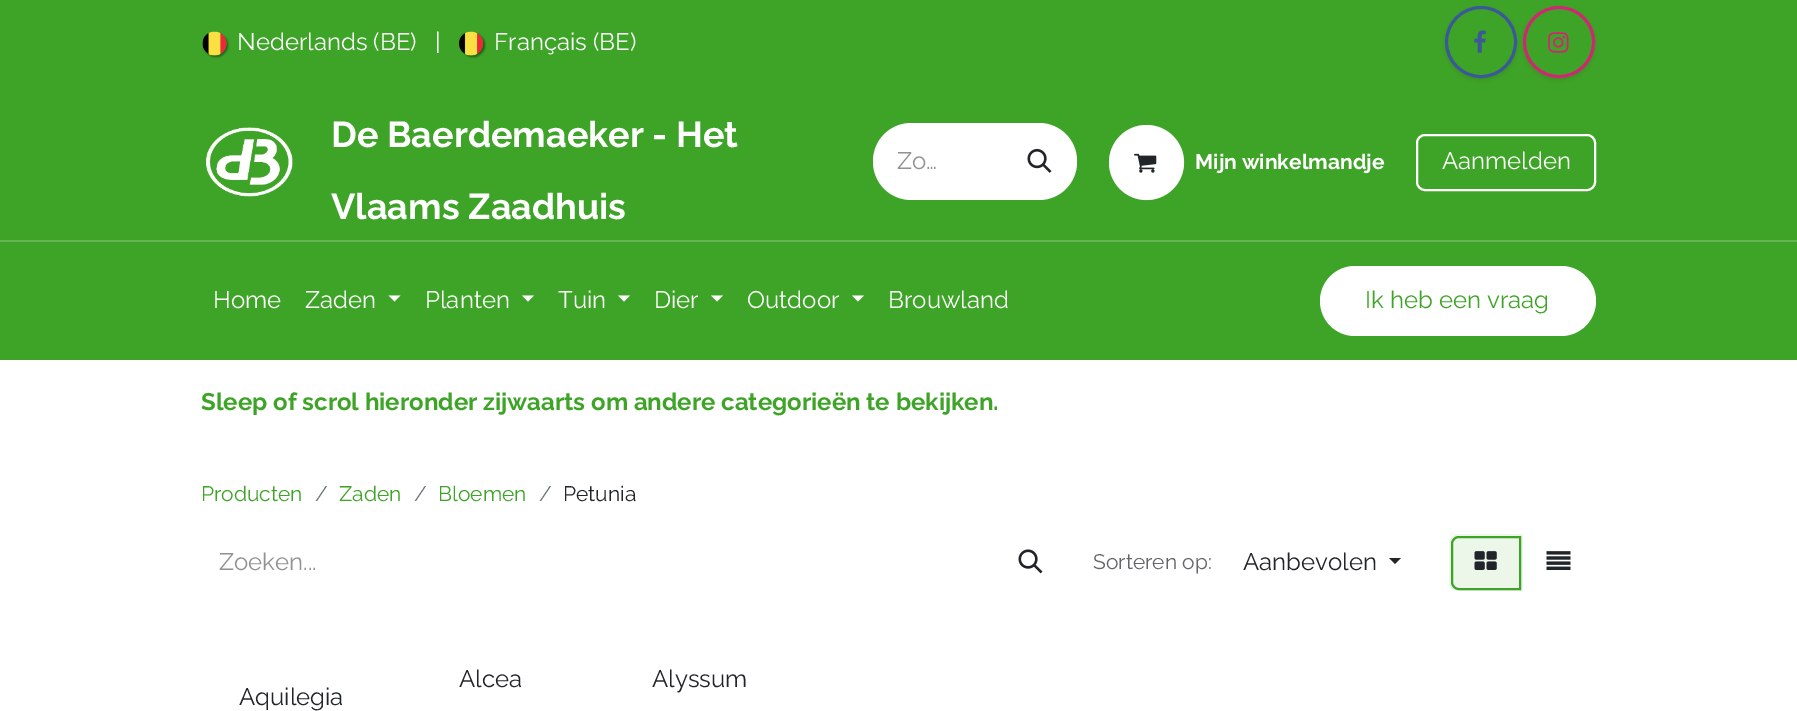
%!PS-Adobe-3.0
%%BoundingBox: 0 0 1797 711
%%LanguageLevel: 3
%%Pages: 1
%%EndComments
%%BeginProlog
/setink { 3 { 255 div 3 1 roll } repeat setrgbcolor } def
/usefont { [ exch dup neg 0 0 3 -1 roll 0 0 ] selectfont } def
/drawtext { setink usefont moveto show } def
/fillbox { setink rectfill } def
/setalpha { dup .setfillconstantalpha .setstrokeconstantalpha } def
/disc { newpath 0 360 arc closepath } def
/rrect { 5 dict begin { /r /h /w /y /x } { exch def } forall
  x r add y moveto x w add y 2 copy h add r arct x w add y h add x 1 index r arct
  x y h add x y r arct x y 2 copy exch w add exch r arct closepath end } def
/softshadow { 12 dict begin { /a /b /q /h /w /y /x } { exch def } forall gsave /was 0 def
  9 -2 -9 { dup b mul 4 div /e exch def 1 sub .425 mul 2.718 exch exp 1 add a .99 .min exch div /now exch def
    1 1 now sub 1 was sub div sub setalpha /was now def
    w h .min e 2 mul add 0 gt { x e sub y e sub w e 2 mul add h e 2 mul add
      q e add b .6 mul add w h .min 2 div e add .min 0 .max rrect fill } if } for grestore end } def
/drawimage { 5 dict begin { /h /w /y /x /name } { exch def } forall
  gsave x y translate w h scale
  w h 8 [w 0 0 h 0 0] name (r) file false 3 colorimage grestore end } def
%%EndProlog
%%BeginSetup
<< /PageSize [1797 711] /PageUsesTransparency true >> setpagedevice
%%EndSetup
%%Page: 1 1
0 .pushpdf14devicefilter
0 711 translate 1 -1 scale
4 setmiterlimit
0 0 1797 711 255 255 255 fillbox
0 0 1797 360 62 164 39 fillbox
0 0 0 setink
204 33 24 24 12 1 0.43 softshadow
(assets/img1.rgb) 202 31 25 25 drawimage
(Nederlands \(BE\)) 237 50 /Raleway-Regular 24 255 255 255 drawtext
(|) 435 50 /Raleway-Regular 24 255 255 255 drawtext
0 0 0 setink
461 33 24 24 12 1 0.43 softshadow
(assets/img2.rgb) 459 31 24 25 drawimage
(Français \(BE\)) 494 50 /Raleway-Regular 24 255 255 255 drawtext
gsave
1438 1 moveto 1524 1 lineto 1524 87 lineto 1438 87 lineto closepath 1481 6 moveto 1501 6 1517 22 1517 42 curveto 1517 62 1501 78 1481 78 curveto 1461 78 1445 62 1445 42 curveto 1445 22 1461 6 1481 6 curveto closepath eoclip newpath
0 0 0 setink
1445 8 72 72 36 2 0.1 softshadow
grestore
59 89 153 setink
3 setlinewidth
1481 42 34.5 disc stroke
(assets/img3.rgb) 1474 30 12 23 drawimage
gsave
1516 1 moveto 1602 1 lineto 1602 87 lineto 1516 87 lineto closepath 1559 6 moveto 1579 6 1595 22 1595 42 curveto 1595 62 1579 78 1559 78 curveto 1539 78 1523 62 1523 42 curveto 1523 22 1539 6 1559 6 curveto closepath eoclip newpath
0 0 0 setink
1523 8 72 72 36 2 0.1 softshadow
grestore
207 40 114 setink
1559 42 34.5 disc stroke
(assets/img4.rgb) 1548 32 21 21 drawimage
(assets/img5.rgb) 205 127 88 70 drawimage
(De Baerdemaeker - Het) 331 147 /Raleway-Bold 36 255 255 255 drawtext
(Vlaams Zaadhuis) 331 219 /Raleway-Bold 36 255 255 255 drawtext
911.5 123 moveto 1004 123 lineto 1004 200 lineto 911.5 200 lineto 890 200 873 183 873 161.5 curveto 873 140 890 123 911.5 123 curveto closepath fill
(Zo…) 897 169 /Raleway-Regular 24 144 146 148 drawtext
255 255 255 setink
1002 123 moveto 1039 123 lineto 1060 123 1077 140 1077 161 curveto 1077 162 lineto 1077 183 1060 200 1039 200 curveto 1002 200 lineto closepath fill
(assets/img6.rgb) 1027 148 25 25 drawimage
1146.5 162.5 37.5 disc fill
0.2 setalpha
2 setlinewidth
1146.5 162.5 36.5 disc stroke
1 setalpha
(assets/img7.rgb) 1134 153 23 20 drawimage
(Mijn winkelmandje) 1195 169 /Raleway-Bold 21 255 255 255 drawtext
1417 135 178 55 8 rrect stroke
(Aanmelden) 1442 169 /Raleway-Regular 24 255 255 255 drawtext
0 240 1797 2 101 182 82 fillbox
(Home) 213 308 /Raleway-Regular 24 255 255 255 drawtext
(Zaden) 305 308 /Raleway-Regular 24 255 255 255 drawtext
388.5 295.5 moveto 400.5 295.5 lineto 394.5 301.5 lineto closepath fill
(Planten) 425 308 /Raleway-Regular 24 255 255 255 drawtext
522 295.5 moveto 534 295.5 lineto 528 301.5 lineto closepath fill
(Tuin) 558 308 /Raleway-Regular 24 255 255 255 drawtext
618 295.5 moveto 630 295.5 lineto 624 301.5 lineto closepath fill
(Dier) 654 308 /Raleway-Regular 24 255 255 255 drawtext
711 295.5 moveto 723 295.5 lineto 717 301.5 lineto closepath fill
(Outdoor) 747 308 /Raleway-Regular 24 255 255 255 drawtext
852 295.5 moveto 864 295.5 lineto 858 301.5 lineto closepath fill
(Brouwland) 888 308 /Raleway-Regular 24 255 255 255 drawtext
1320 266 276 70 35 rrect fill
(Ik heb een vraag) 1365 308 /Raleway-Regular 24 62 164 39 drawtext
(Sleep of scrol hieronder zijwaarts om andere categorieën te bekijken.) 201 410 /Raleway-Bold 24 62 164 39 drawtext
(Producten) 201 501 /Raleway-Regular 21 62 164 39 drawtext
(/) 315 501 /Raleway-Regular 21 108 117 125 drawtext
(Zaden) 339 501 /Raleway-Regular 21 62 164 39 drawtext
(/) 414 501 /Raleway-Regular 21 108 117 125 drawtext
(Bloemen) 438 501 /Raleway-Regular 21 62 164 39 drawtext
(/) 539 501 /Raleway-Regular 21 108 117 125 drawtext
(Petunia) 563 501 /Raleway-Regular 21 33 37 41 drawtext
(Zoeken...) 219 570 /Raleway-Regular 24 144 146 148 drawtext
(assets/img8.rgb) 1018 549 25 25 drawimage
(Sorteren op:) 1093 569 /Raleway-Regular 21 100 102 105 drawtext
(Aanbevolen) 1243 570 /Raleway-Regular 24 33 37 41 drawtext
1389 558 moveto 1401 558 lineto 1395 564 lineto closepath fill
236 246 233 setink
1458 534 moveto 1523 534 lineto 1523 591 lineto 1458 591 lineto 1453 591 1449 587 1449 582 curveto 1449 543 lineto 1449 538 1453 534 1458 534 curveto closepath fill
62 164 39 setink
1459 537 moveto 1520 537 lineto 1520 589 lineto 1459 589 lineto 1455 589 1452 586 1452 582 curveto 1452 544 lineto 1452 540 1455 537 1459 537 curveto closepath stroke
(assets/img9.rgb) 1474 551 23 19 drawimage
(assets/img10.rgb) 1546 551 25 19 drawimage
(Alcea) 459 687 /Raleway-Regular 24 33 37 41 drawtext
(Alyssum) 652 687 /Raleway-Regular 24 33 37 41 drawtext
(Aquilegia) 239 705 /Raleway-Regular 24 33 37 41 drawtext
.poppdf14devicefilter showpage
%%EOF
